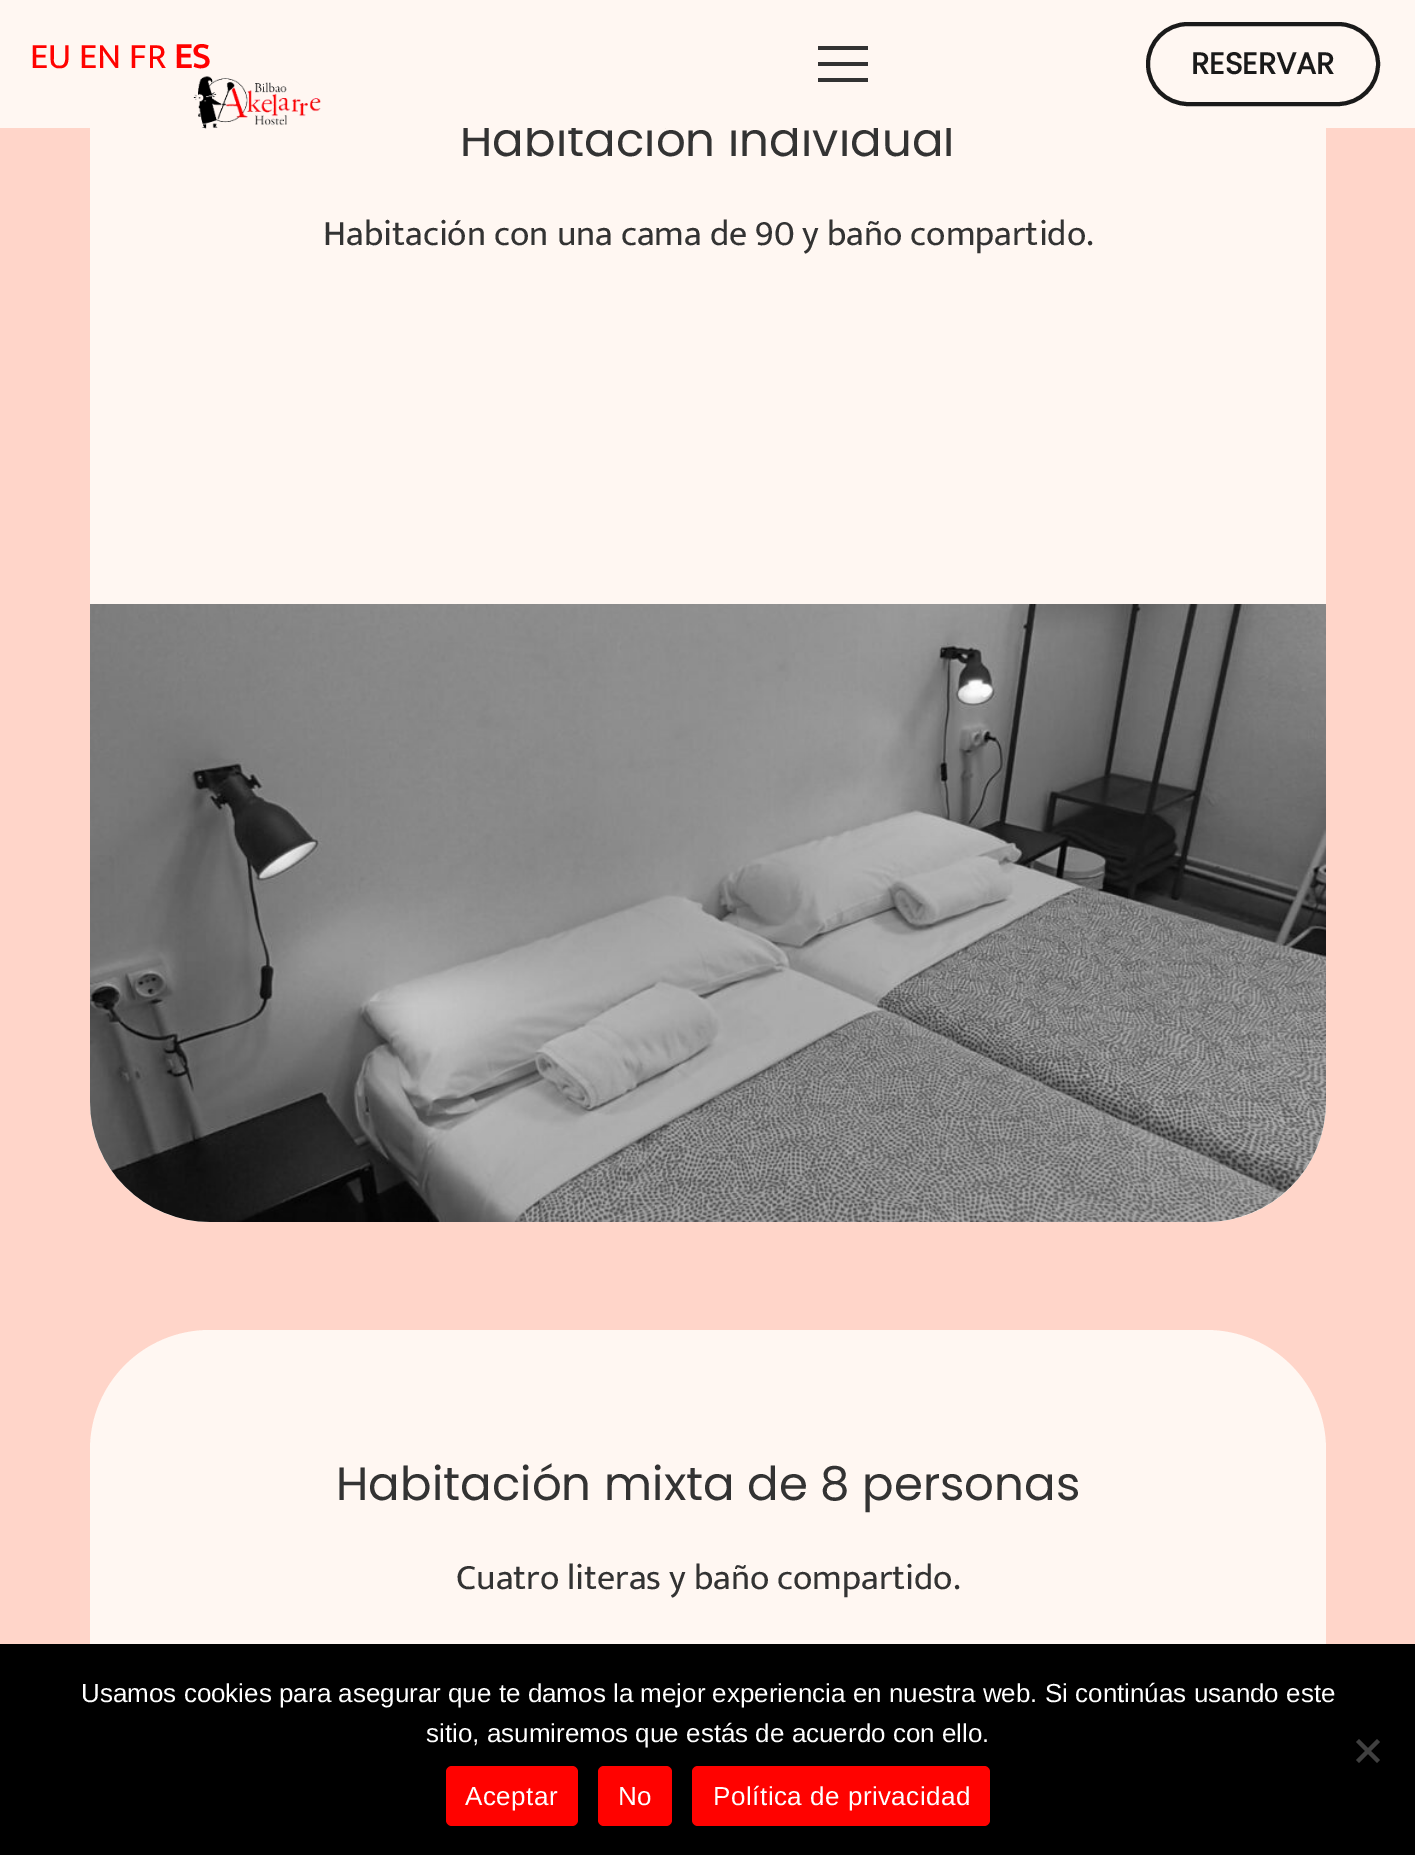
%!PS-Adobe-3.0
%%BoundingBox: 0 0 1415 1855
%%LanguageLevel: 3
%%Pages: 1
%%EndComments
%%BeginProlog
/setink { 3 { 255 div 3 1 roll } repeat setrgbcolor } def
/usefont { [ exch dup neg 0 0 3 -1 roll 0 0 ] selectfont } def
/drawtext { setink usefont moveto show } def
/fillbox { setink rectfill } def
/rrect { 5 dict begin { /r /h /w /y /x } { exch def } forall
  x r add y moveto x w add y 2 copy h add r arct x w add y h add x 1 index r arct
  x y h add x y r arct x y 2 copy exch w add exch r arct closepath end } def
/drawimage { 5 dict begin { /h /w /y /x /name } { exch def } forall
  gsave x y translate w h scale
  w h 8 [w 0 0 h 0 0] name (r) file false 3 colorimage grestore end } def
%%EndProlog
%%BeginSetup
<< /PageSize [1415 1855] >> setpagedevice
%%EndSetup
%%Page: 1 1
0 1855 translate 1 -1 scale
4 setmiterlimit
0 0 1415 1855 255 213 201 fillbox
255 247 242 setink
90 -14 1236 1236 120 rrect fill
(Habitación individual) 460 156 /Poppins-Regular 46.75 51 51 51 drawtext
0 0 1415 128 255 247 242 fillbox
(EU EN FR) 30 68 /Mukta-Regular 36 255 2 0 drawtext
(ES) 174 68 /Mukta-Bold 36 255 2 0 drawtext
818 62 50 4 51 51 51 fillbox
818 46 50 4 51 51 51 fillbox
818 78 50 4 51 51 51 fillbox
26 26 26 setink
4 setlinewidth
1148 24 230 80 40 rrect stroke
(RESERVAR) 1191 74 /Poppins-Bold 30 26 26 26 drawtext
(assets/img1.rgb) 193 76 128 53 drawimage
(Habitación con una cama de 90 y baño compartido.) 323 245 /Mukta-Regular 36 51 51 51 drawtext
(assets/img2.rgb) 90 604 1236 618 drawimage
255 247 242 setink
210 1330 moveto 1206 1330 lineto 1272.5 1330 1326 1383.5 1326 1450 curveto 1326 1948 lineto 90 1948 lineto 90 1450 lineto 90 1383.5 143.5 1330 210 1330 curveto closepath fill
(Habitación mixta de 8 personas) 336 1500 /Poppins-Regular 46.75 51 51 51 drawtext
(Cuatro literas y baño compartido.) 456 1589 /Mukta-Regular 36 51 51 51 drawtext
0 1644 1415 211 0 0 0 fillbox
(Usamos cookies para asegurar que te damos la mejor experiencia en nuestra web. Si continúas usando este) 81 1702 /LiberationSans-Regular 26 255 255 255 drawtext
(sitio, asumiremos que estás de acuerdo con ello.) 426 1742 /LiberationSans-Regular 26 255 255 255 drawtext
64 64 64 setink
1377 1739 moveto 1380 1742 lineto 1359 1763 lineto 1356 1760 lineto closepath fill
1356 1742 moveto 1359 1739 lineto 1380 1760 lineto 1377 1763 lineto closepath fill
255 2 0 setink
446 1766 132 60 6 rrect fill
255 255 255 setink
465 1805 moveto 0.5 0 (Aceptar) ashow
255 2 0 setink
598 1766 74 60 6 rrect fill
255 255 255 setink
618 1805 moveto 0.5 0 (No) ashow
255 2 0 setink
692 1766 298 60 6 rrect fill
255 255 255 setink
713 1805 moveto 0.5 0 (Política de privacidad) ashow
showpage
%%EOF
